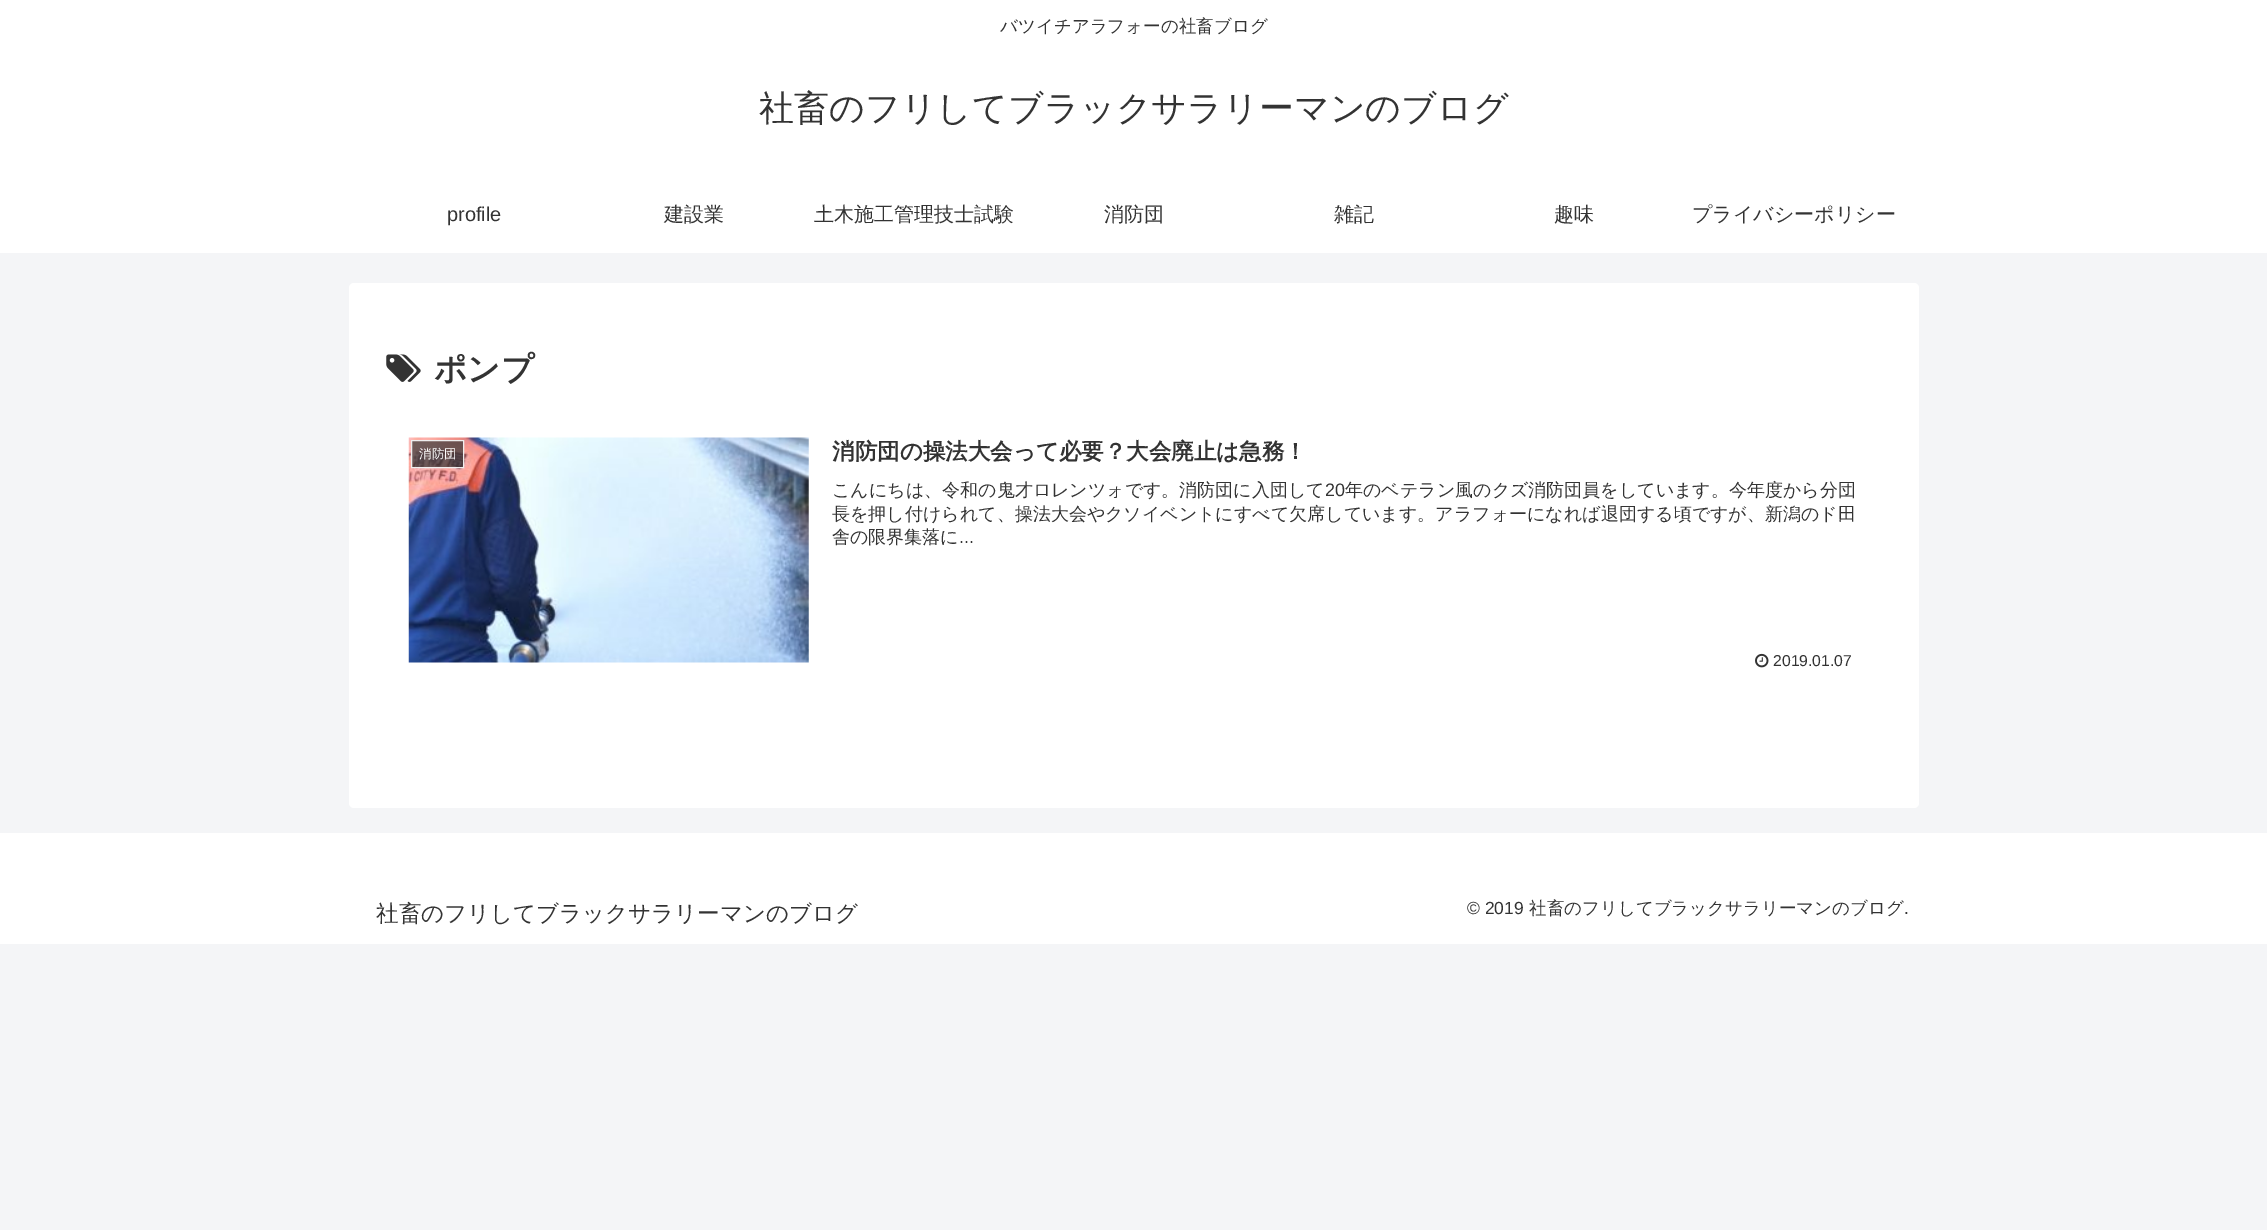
%!PS-Adobe-3.0
%%BoundingBox: 0 0 2267 1230
%%LanguageLevel: 3
%%Pages: 1
%%EndComments
%%BeginProlog
/setink { 3 { 255 div 3 1 roll } repeat setrgbcolor } def
/usefont { [ exch dup neg 0 0 3 -1 roll 0 0 ] selectfont } def
/drawtext { setink usefont moveto show } def
/fillbox { setink rectfill } def
/setalpha { dup .setfillconstantalpha .setstrokeconstantalpha } def
/rrect { 5 dict begin { /r /h /w /y /x } { exch def } forall
  x r add y moveto x w add y 2 copy h add r arct x w add y h add x 1 index r arct
  x y h add x y r arct x y 2 copy exch w add exch r arct closepath end } def
/drawimage { 5 dict begin { /h /w /y /x /name } { exch def } forall
  gsave x y translate w h scale
  w h 8 [w 0 0 h 0 0] name (r) file false 3 colorimage grestore end } def
%%EndProlog
%%BeginSetup
<< /PageSize [2267 1230] /PageUsesTransparency true >> setpagedevice
%%EndSetup
%%Page: 1 1
0 .pushpdf14devicefilter
0 1230 translate 1 -1 scale
4 setmiterlimit
0 0 2267 1230 244 245 247 fillbox
0 0 2267 253 255 255 255 fillbox
(バツイチアラフォーの社畜ブログ) 1000 32 /WenQuanYiZenHei-Medium 17.5 51 51 51 drawtext
(社畜のフリしてブラックサラリーマンのブログ) 759 120 /WenQuanYiZenHei-Medium 35 51 51 51 drawtext
(profile) 447 221 /LiberationSans-Regular 20 51 51 51 drawtext
(建設業) 664 221 /WenQuanYiZenHei-Medium 20 51 51 51 drawtext
(土木施工管理技士試験) 814 221 /WenQuanYiZenHei-Medium 20 51 51 51 drawtext
(消防団) 1104 221 /WenQuanYiZenHei-Medium 20 51 51 51 drawtext
(雑記) 1334 221 /WenQuanYiZenHei-Medium 20 51 51 51 drawtext
(趣味) 1554 221 /WenQuanYiZenHei-Medium 20 51 51 51 drawtext
(プライバシーポリシー) 1692 221 /WenQuanYiZenHei-Medium 20 51 51 51 drawtext
255 255 255 setink
349 283 1570 525 5 rrect fill
(assets/img1.rgb) 386 354 35 28 drawimage
(ポンプ) 434 380 /WenQuanYiZenHei-Bold 32.5 51 51 51 drawtext
(assets/img2.rgb) 408 437 401 226 drawimage
0.7 setalpha
411.5 440.5 moveto 463.5 440.5 lineto 463.5 467.5 lineto 411.5 467.5 lineto closepath fill
1 setalpha
238 238 238 setink
411.5 440.5 moveto 463.5 440.5 lineto 463.5 467.5 lineto 411.5 467.5 lineto closepath stroke
(消防団) 419 458 /WenQuanYiZenHei-Medium 12.5 255 255 255 drawtext
(消防団の操法大会って必要？大会廃止は急務！) 832 459 /WenQuanYiZenHei-Bold 22.5 51 51 51 drawtext
(こんにちは、令和の鬼才ロレンツォです。消防団に入団して) 832 496 /WenQuanYiZenHei-Medium 18 51 51 51 drawtext
(20) 1325 496 /LiberationSans-Regular 18 51 51 51 drawtext
(年のベテラン風のクズ消防団員をしています。今年度から分団) 1345 496 /WenQuanYiZenHei-Medium 18 51 51 51 drawtext
(長を押し付けられて、操法大会やクソイベントにすべて欠席しています。アラフォーになれば退団する頃ですが、新潟のド田) 832 520 /WenQuanYiZenHei-Medium 18 51 51 51 drawtext
(舎の限界集落に) 832 543 /WenQuanYiZenHei-Medium 18 51 51 51 drawtext
(...) 959 543 /LiberationSans-Regular 18 51 51 51 drawtext
(assets/img3.rgb) 1755 653 14 15 drawimage
(2019.01.07) 1773 666 /LiberationSans-Regular 15.75 51 51 51 drawtext
0 833 2267 111 255 255 255 fillbox
(社畜のフリしてブラックサラリーマンのブログ) 376 921 /WenQuanYiZenHei-Medium 22.5 51 51 51 drawtext
(© 2019) 1467 914 /LiberationSans-Regular 17.5 51 51 51 drawtext
(社畜のフリしてブラックサラリーマンのブログ) 1529 914 /WenQuanYiZenHei-Medium 17.5 51 51 51 drawtext
(.) 1904 914 /LiberationSans-Regular 17.5 51 51 51 drawtext
.poppdf14devicefilter showpage
%%EOF
